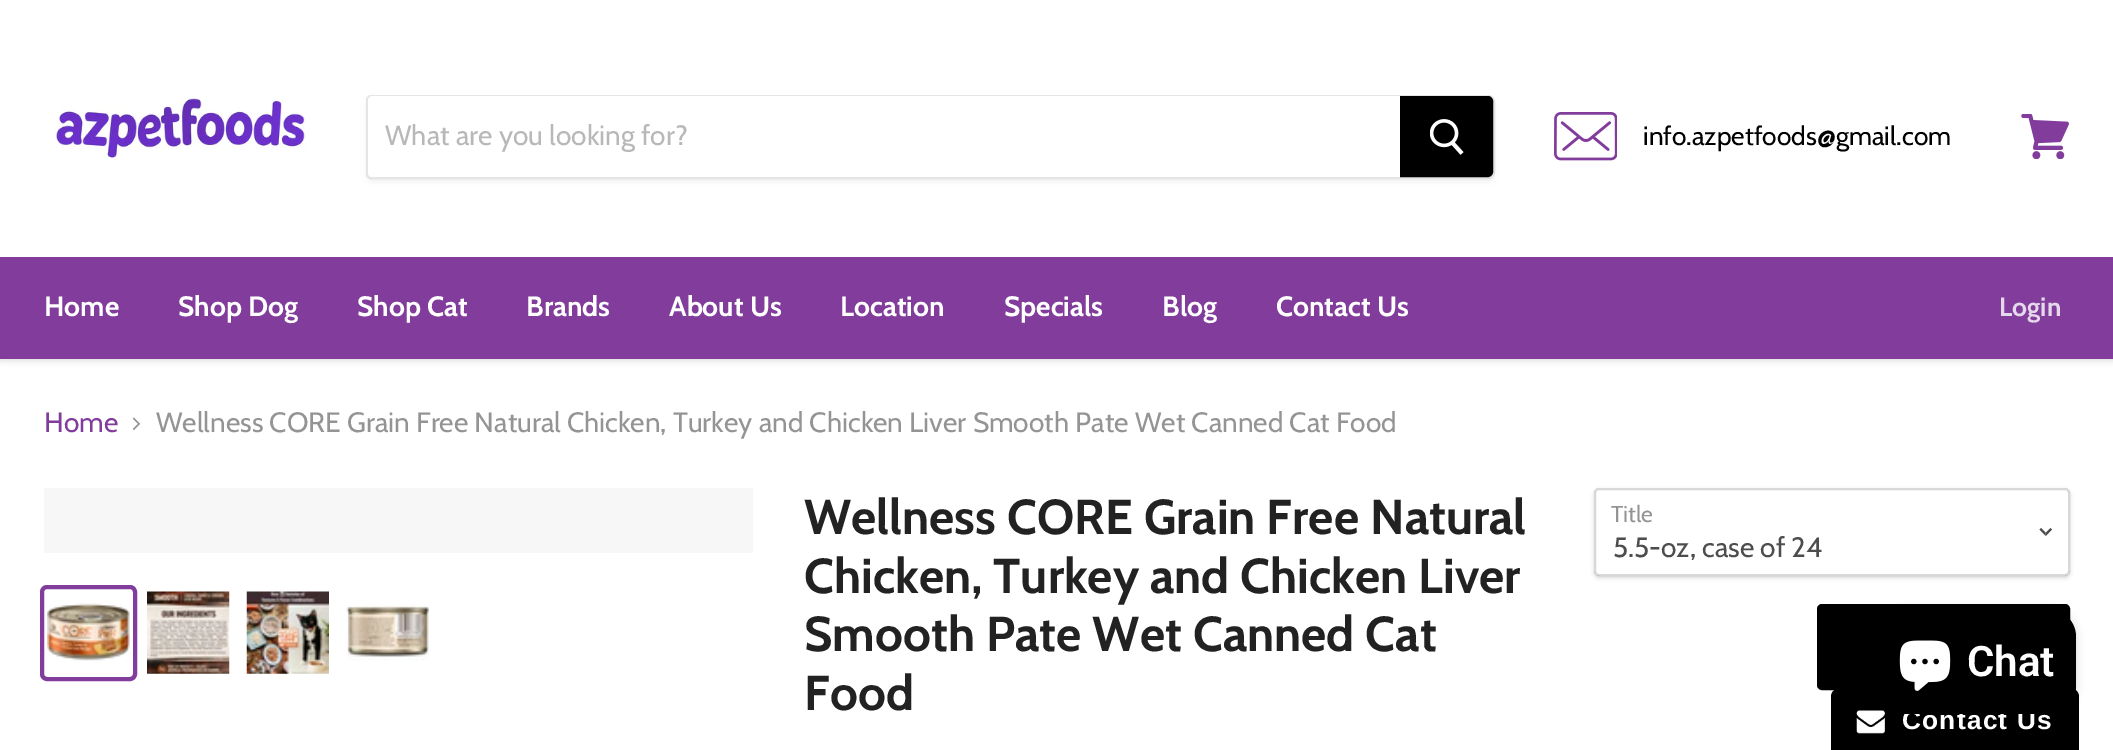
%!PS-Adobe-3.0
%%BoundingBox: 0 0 2113 750
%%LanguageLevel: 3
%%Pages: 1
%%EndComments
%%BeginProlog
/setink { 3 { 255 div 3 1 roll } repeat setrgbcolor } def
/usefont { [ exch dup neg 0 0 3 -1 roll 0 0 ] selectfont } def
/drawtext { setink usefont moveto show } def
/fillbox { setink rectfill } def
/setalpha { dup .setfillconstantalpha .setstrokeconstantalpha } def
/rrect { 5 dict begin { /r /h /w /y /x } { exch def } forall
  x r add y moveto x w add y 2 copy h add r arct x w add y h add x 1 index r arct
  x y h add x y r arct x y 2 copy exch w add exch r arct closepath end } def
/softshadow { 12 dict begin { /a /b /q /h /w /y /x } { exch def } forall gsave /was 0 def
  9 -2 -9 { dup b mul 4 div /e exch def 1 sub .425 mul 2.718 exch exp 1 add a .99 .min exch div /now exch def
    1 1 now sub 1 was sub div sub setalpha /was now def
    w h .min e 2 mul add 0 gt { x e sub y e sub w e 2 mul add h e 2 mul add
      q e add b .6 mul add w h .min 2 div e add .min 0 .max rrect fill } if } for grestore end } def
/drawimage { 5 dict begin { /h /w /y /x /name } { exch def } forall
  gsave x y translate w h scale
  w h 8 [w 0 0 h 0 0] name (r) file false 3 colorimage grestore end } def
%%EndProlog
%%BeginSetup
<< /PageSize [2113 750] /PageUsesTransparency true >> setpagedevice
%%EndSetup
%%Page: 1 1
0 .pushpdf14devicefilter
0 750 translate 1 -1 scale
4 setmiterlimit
0 0 2113 750 255 255 255 fillbox
127 127 127 setink
0 2 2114 359 0 3.5 0.25 softshadow
0 0 2113 257 255 255 255 fillbox
(assets/img1.rgb) 55 98 252 63 drawimage
gsave
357 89 moveto 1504 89 lineto 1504 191 lineto 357 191 lineto closepath 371 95 moveto 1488 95 lineto 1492 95 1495 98 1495 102 curveto 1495 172 lineto 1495 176 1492 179 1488 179 curveto 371 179 lineto 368 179 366 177 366 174 curveto 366 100 lineto 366 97 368 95 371 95 curveto closepath eoclip newpath
127 127 127 setink
366 98 1129 84 7 2.5 0.11 softshadow
grestore
0.2 setalpha
127 127 127 setink
2 setlinewidth
371 96 moveto 1488 96 lineto 1491.5 96 1494 98.5 1494 102 curveto 1494 172 lineto 1494 175.5 1491.5 178 1488 178 curveto 371 178 lineto 369 178 367 176 367 174 curveto 367 100 lineto 367 98 369 96 371 96 curveto closepath stroke
1 setalpha
255 255 255 setink
373 96 moveto 1400 96 lineto 1400 177 lineto 373 177 lineto 370 177 368 175 368 172 curveto 368 101 lineto 368 98 370 96 373 96 curveto closepath fill
(What are you looking for?) 385 145 /Cabin-Regular 28 184 184 184 drawtext
0 0 0 setink
1401 97 moveto 1488 97 lineto 1490 97 1492 99 1492 101 curveto 1492 172 lineto 1492 174 1490 176 1488 176 curveto 1401 176 lineto closepath gsave fill grestore
stroke
(assets/img2.rgb) 1430 119 34 36 drawimage
(assets/img3.rgb) 1554 112 63 49 drawimage
(info.azpetfoods@gmail.com) 1643 145 /Cabin-Regular 26.25 0 0 0 drawtext
(assets/img4.rgb) 2021 114 48 45 drawimage
0 257 2113 102 130 60 156 fillbox
(Home) 44 316 /Cabin-Bold 28 255 255 255 drawtext
(Shop Dog) 178 316 /Cabin-Bold 28 255 255 255 drawtext
(Shop Cat) 357 316 /Cabin-Bold 28 255 255 255 drawtext
(Brands) 526 316 /Cabin-Bold 28 255 255 255 drawtext
(About Us) 669 316 /Cabin-Bold 28 255 255 255 drawtext
(Location) 840 316 /Cabin-Bold 28 255 255 255 drawtext
(Specials) 1004 316 /Cabin-Bold 28 255 255 255 drawtext
(Blog) 1162 316 /Cabin-Bold 28 255 255 255 drawtext
(Contact Us) 1276 316 /Cabin-Bold 28 255 255 255 drawtext
(Login) 1999 316 /Cabin-Bold 26.25 230 216 235 drawtext
(Home) 44 432 /Cabin-Regular 28 130 60 156 drawtext
(assets/img5.rgb) 132 417 9 13 drawimage
(Wellness CORE Grain Free Natural Chicken, Turkey and Chicken Liver Smooth Pate Wet Canned Cat Food) 156 432 /Cabin-Regular 28 148 148 148 drawtext
44 488 709 65 247 247 247 fillbox
130 60 156 setink
4 setlinewidth
42 587 93 92 5 rrect stroke
(assets/img6.rgb) 47 603 83 58 drawimage
(assets/img7.rgb) 147 591 83 83 drawimage
(assets/img8.rgb) 246 591 83 83 drawimage
(assets/img9.rgb) 346 605 83 56 drawimage
(Wellness CORE Grain Free Natural) 804 534 /Cabin-Bold 49 34 34 34 drawtext
(Chicken, Turkey and Chicken Liver) 804 593 /Cabin-Bold 49 34 34 34 drawtext
(Smooth Pate Wet Canned Cat) 804 651 /Cabin-Bold 49 34 34 34 drawtext
(Food) 804 710 /Cabin-Bold 49 34 34 34 drawtext
gsave
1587 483 moveto 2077 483 lineto 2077 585 lineto 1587 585 lineto closepath 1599 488 moveto 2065 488 lineto 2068 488 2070 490 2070 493 curveto 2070 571 lineto 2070 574 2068 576 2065 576 curveto 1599 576 lineto 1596 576 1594 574 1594 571 curveto 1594 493 lineto 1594 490 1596 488 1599 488 curveto closepath eoclip newpath
0 0 0 setink
1594 490 476 88 5 2 0.15 softshadow
grestore
0.3 setalpha
127 127 127 setink
2 setlinewidth
1595 489 474 86 4 rrect stroke
1 setalpha
(Title) 1611 522 /Cabin-Regular 23 148 148 148 drawtext
(assets/img10.rgb) 2039 527 14 10 drawimage
(5.5-oz, case of 24) 1613 557 /Cabin-Regular 28 77 77 77 drawtext
0 0 0 setink
1818 605 251 84 4 rrect gsave fill grestore
stroke
1840 688 moveto 2070 688 lineto 2075 688 2079 692 2079 697 curveto 2079 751 lineto 1831 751 lineto 1831 697 lineto 1831 692 1835 688 1840 688 curveto closepath fill
(assets/img12.rgb) 1856 710 29 24 drawimage
1878 609 198 105 28 4.5 0.15 softshadow
/LiberationSans-Bold 26.25 usefont
255 255 255 setink
1902 729 moveto 1.25 0 (Contact Us) ashow
0 0 0 setink
1878 609 198 105 28 rrect fill
(assets/img11.rgb) 1899 640 52 51 drawimage
(Chat) 1967 676 /Roboto-SemiBold 42 255 255 255 drawtext
.poppdf14devicefilter showpage
%%EOF
